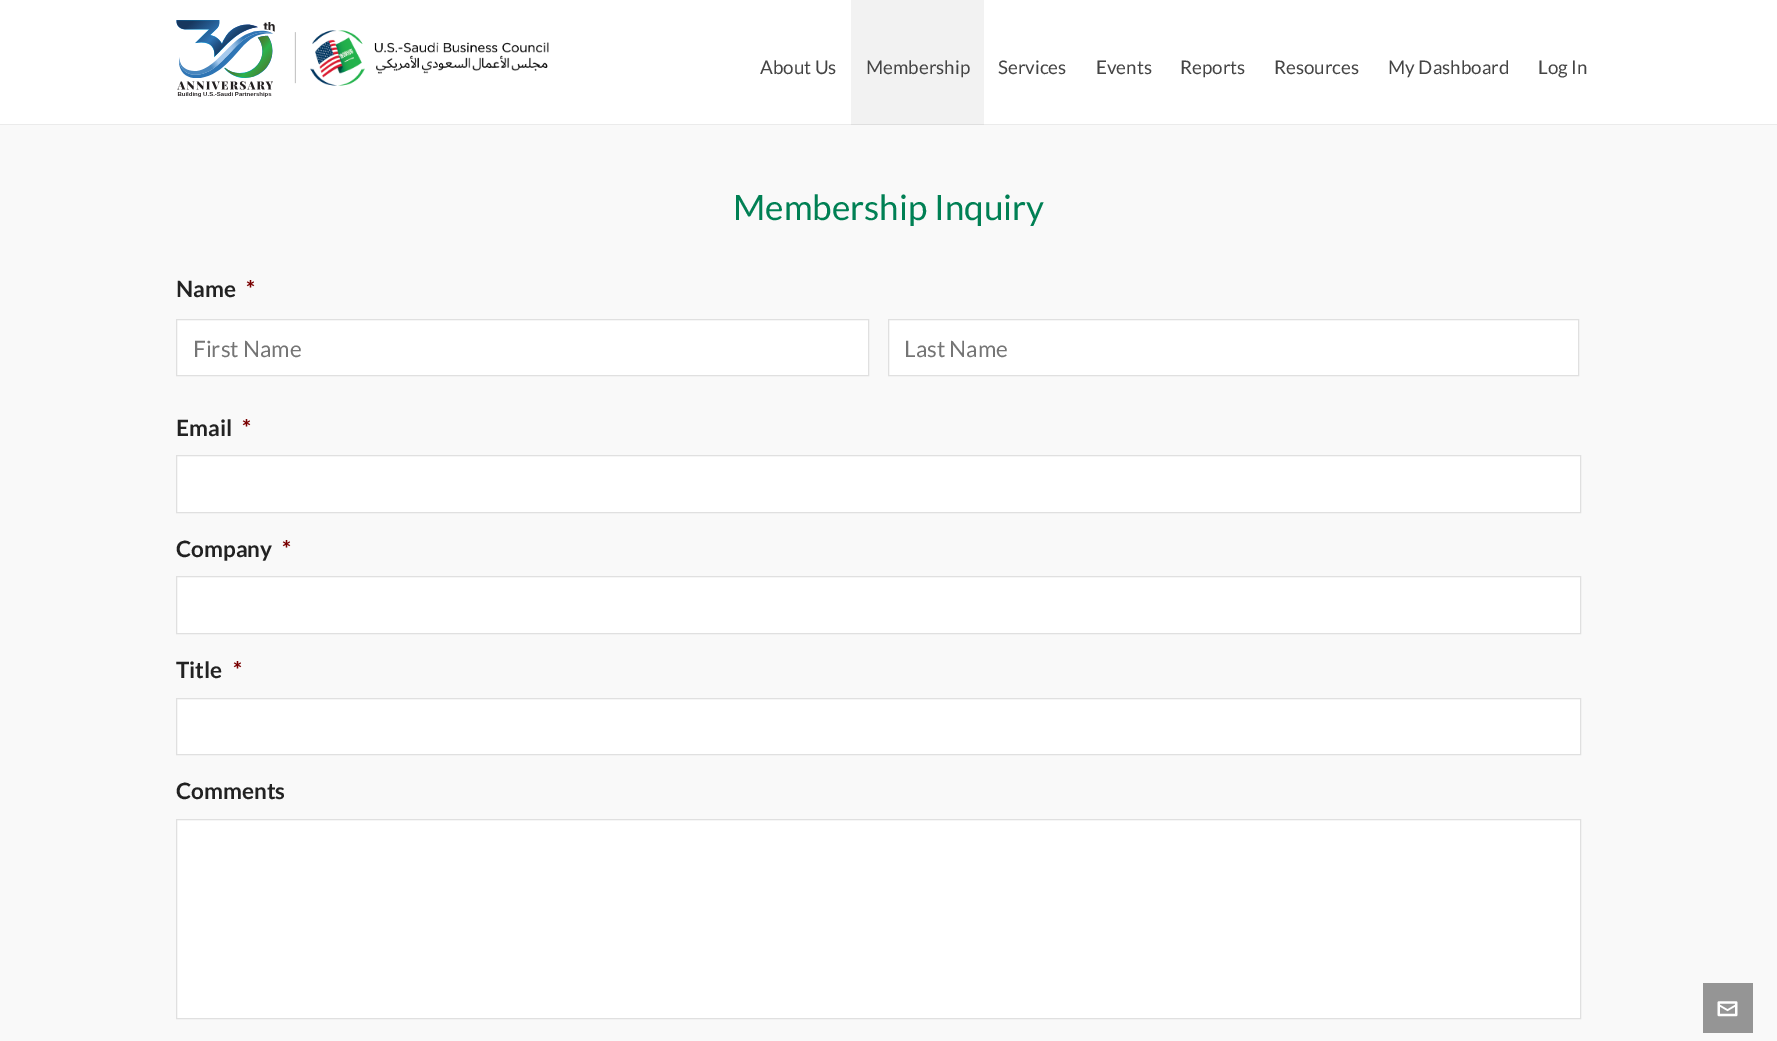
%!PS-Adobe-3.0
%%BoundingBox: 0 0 1777 1041
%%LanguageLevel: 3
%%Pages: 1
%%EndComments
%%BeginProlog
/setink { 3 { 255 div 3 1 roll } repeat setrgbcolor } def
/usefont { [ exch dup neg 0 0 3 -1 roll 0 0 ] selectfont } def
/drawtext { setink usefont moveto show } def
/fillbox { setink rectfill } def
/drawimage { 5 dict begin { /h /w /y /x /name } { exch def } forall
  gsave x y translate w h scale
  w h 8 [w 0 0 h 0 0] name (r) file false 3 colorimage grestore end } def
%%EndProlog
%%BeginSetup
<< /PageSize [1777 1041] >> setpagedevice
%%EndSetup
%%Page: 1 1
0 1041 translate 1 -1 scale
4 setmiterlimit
0 0 1777 1041 249 249 249 fillbox
0 0 1777 124 255 255 255 fillbox
851 0 133 124 242 242 242 fillbox
0 124 1777 1 235 235 235 fillbox
851 124 133 1 223 223 223 fillbox
(assets/img1.rgb) 176 20 373 77 drawimage
(About Us) 760 74 /Lato-Regular 18.75 68 68 68 drawtext
(Membership) 866 74 /Lato-Regular 18.75 68 68 68 drawtext
(Services) 998 74 /Lato-Regular 18.75 68 68 68 drawtext
(Events) 1096 74 /Lato-Regular 18.75 68 68 68 drawtext
(Reports) 1180 74 /Lato-Regular 18.75 68 68 68 drawtext
(Resources) 1274 74 /Lato-Regular 18.75 68 68 68 drawtext
(My Dashboard) 1388 74 /Lato-Regular 18.75 68 68 68 drawtext
(Log In) 1538 74 /Lato-Regular 18.75 68 68 68 drawtext
(Membership Inquiry) 733 220 /Lato-Regular 35 0 128 84 drawtext
(Name) 176 297 /Lato-Bold 22.5 34 34 34 drawtext
(*) 246 297 /Lato-Bold 22.5 121 0 0 drawtext
255 255 255 setink
176.5 319.5 moveto 868.5 319.5 lineto 868.5 375.5 lineto 176.5 375.5 lineto closepath gsave fill grestore
224 224 224 setink
stroke
(First Name) 193 357 /Lato-Regular 22.5 117 117 117 drawtext
255 255 255 setink
888.5 319.5 moveto 1578.5 319.5 lineto 1578.5 375.5 lineto 888.5 375.5 lineto closepath gsave fill grestore
224 224 224 setink
stroke
(Last Name) 904 357 /Lato-Regular 22.5 117 117 117 drawtext
(Email) 176 436 /Lato-Bold 22.5 34 34 34 drawtext
(*) 242 436 /Lato-Bold 22.5 121 0 0 drawtext
255 255 255 setink
176.5 455.5 moveto 1580.5 455.5 lineto 1580.5 512.5 lineto 176.5 512.5 lineto closepath gsave fill grestore
224 224 224 setink
stroke
(Company) 176 557 /Lato-Bold 22.5 34 34 34 drawtext
(*) 282 557 /Lato-Bold 22.5 121 0 0 drawtext
255 255 255 setink
176.5 576.5 moveto 1580.5 576.5 lineto 1580.5 633.5 lineto 176.5 633.5 lineto closepath gsave fill grestore
224 224 224 setink
stroke
(Title) 176 678 /Lato-Bold 22.5 34 34 34 drawtext
(*) 233 678 /Lato-Bold 22.5 121 0 0 drawtext
255 255 255 setink
176.5 698.5 moveto 1580.5 698.5 lineto 1580.5 754.5 lineto 176.5 754.5 lineto closepath gsave fill grestore
224 224 224 setink
stroke
(Comments) 176 799 /Lato-Bold 22.5 34 34 34 drawtext
255 255 255 setink
176.5 819.5 moveto 1580.5 819.5 lineto 1580.5 1018.5 lineto 176.5 1018.5 lineto closepath gsave fill grestore
224 224 224 setink
stroke
1703 983 50 50 149 149 149 fillbox
(assets/img2.rgb) 1717 1001 21 16 drawimage
showpage
%%EOF
